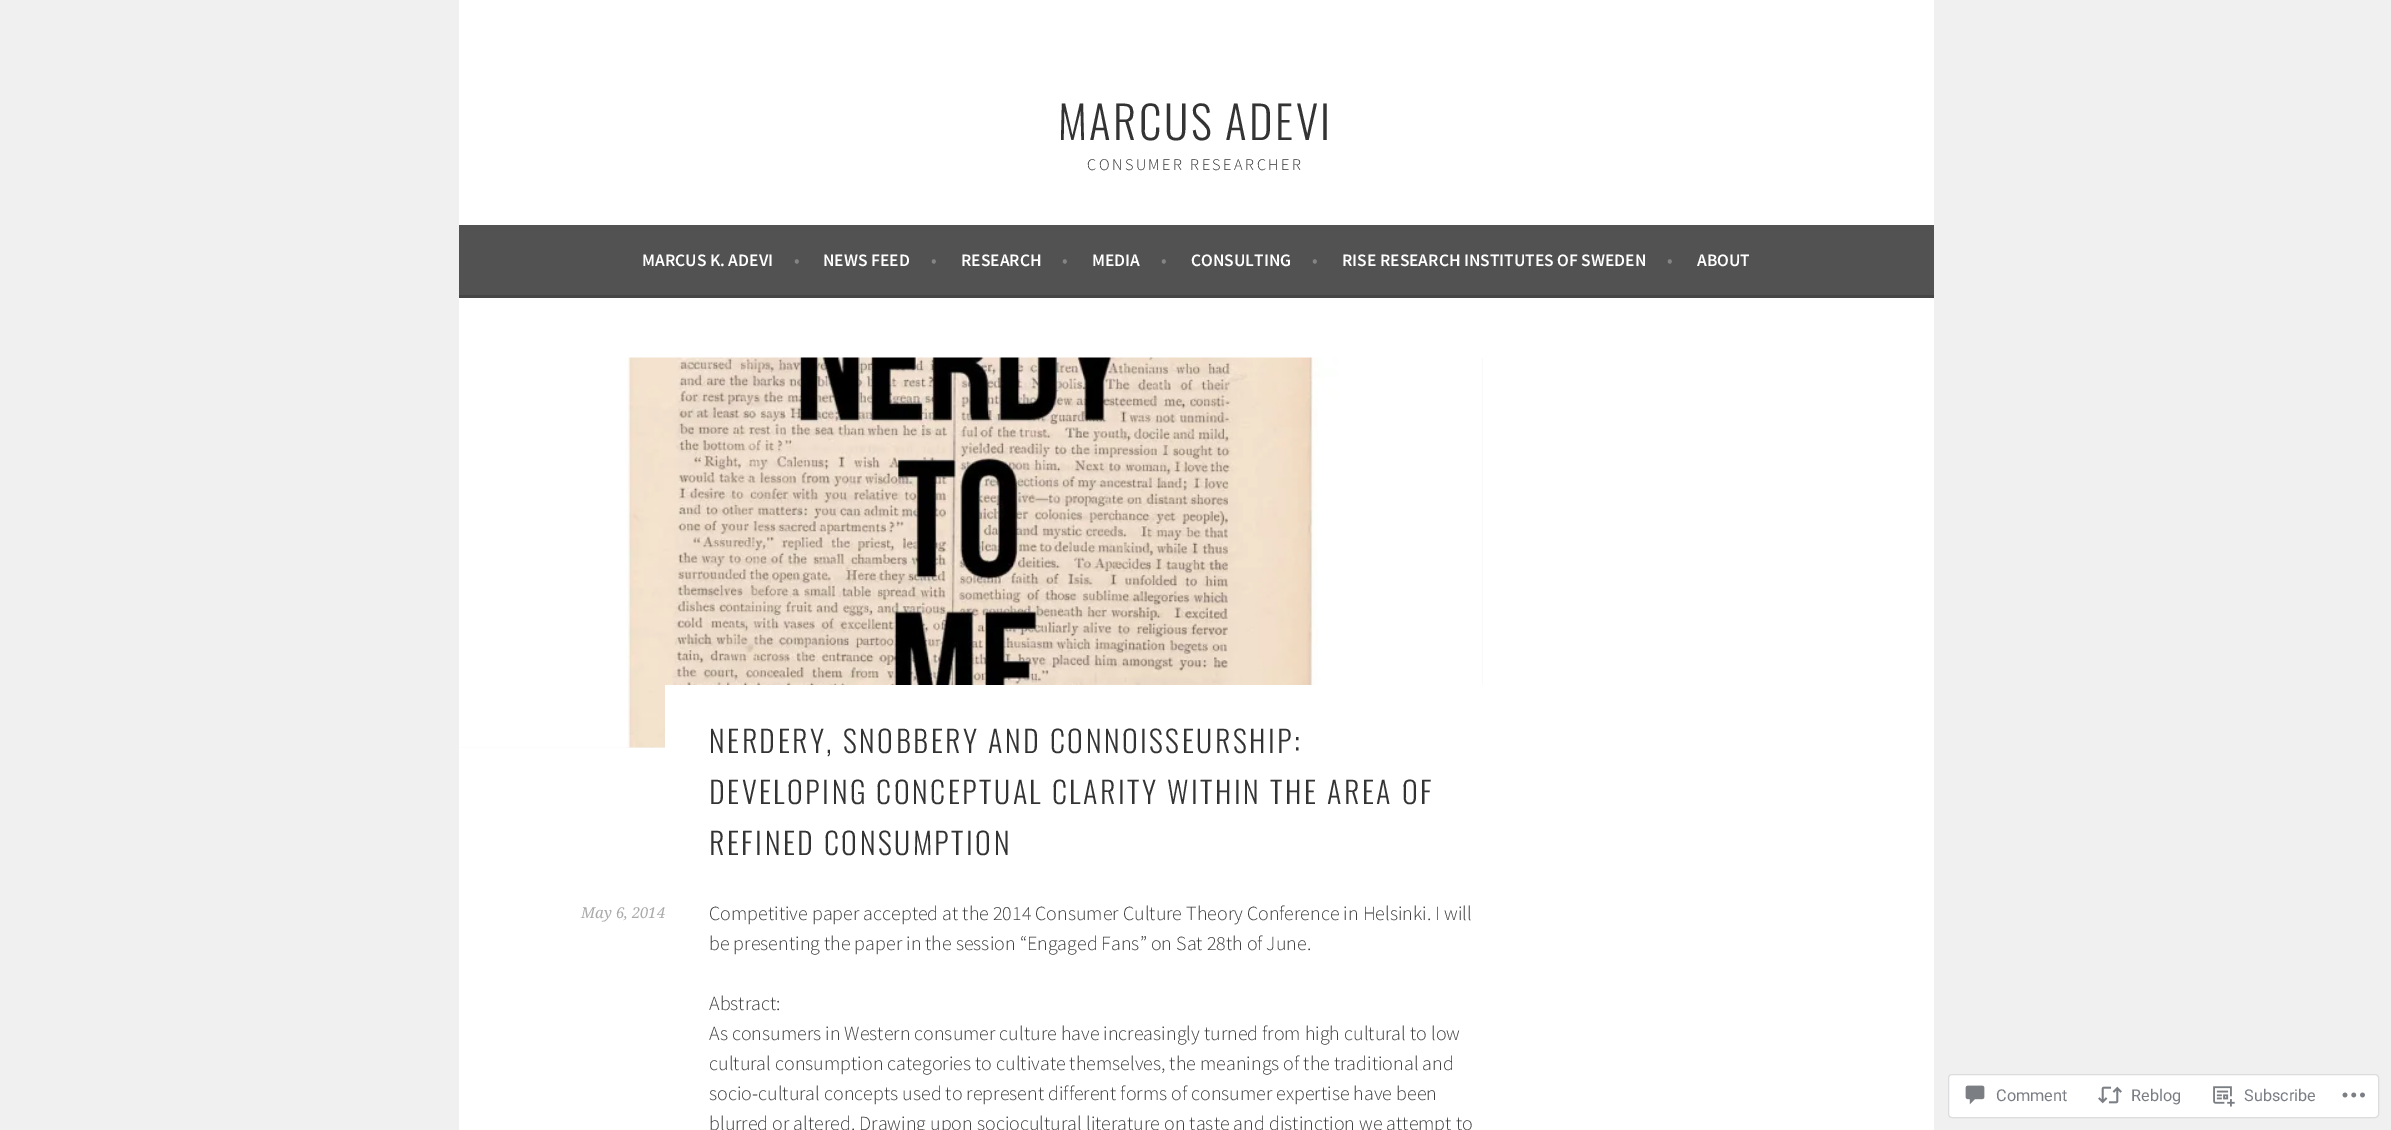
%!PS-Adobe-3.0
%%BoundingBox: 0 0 2391 1130
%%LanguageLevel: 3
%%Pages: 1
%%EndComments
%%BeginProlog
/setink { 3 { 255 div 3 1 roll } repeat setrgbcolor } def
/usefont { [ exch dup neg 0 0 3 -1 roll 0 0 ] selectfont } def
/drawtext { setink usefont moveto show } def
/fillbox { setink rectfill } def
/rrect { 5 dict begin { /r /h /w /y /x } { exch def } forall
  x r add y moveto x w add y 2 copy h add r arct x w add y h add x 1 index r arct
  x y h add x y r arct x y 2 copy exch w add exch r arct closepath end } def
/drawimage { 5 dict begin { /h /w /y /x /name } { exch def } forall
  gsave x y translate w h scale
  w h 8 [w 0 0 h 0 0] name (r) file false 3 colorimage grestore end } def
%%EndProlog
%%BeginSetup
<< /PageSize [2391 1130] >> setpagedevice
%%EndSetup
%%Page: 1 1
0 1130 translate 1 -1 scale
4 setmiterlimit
0 0 2391 1130 240 240 240 fillbox
459 0 1475 225 255 255 255 fillbox
/Oswald-Light 45 usefont
51 51 51 setink
1058 140 moveto 2.5 0 (MARCUS ADEVI) ashow
/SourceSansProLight-Light 16.25 usefont
1087 170 moveto 2.5 0 (CONSUMER RESEARCHER) ashow
459 225 1475 70 82 82 82 fillbox
459 295 1475 3 70 70 70 fillbox
(MARCUS K. ADEVI) 642 266 /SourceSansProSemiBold-SemiBold 17.5 255 255 255 drawtext
(•) 794 266 /SourceSansProSemiBold-SemiBold 17.5 132 132 132 drawtext
(NEWS FEED) 823 266 /SourceSansProSemiBold-SemiBold 17.5 255 255 255 drawtext
(•) 931 266 /SourceSansProSemiBold-SemiBold 17.5 132 132 132 drawtext
(RESEARCH) 961 266 /SourceSansProSemiBold-SemiBold 17.5 255 255 255 drawtext
(•) 1062 266 /SourceSansProSemiBold-SemiBold 17.5 132 132 132 drawtext
(MEDIA) 1092 266 /SourceSansProSemiBold-SemiBold 17.5 255 255 255 drawtext
(•) 1161 266 /SourceSansProSemiBold-SemiBold 17.5 132 132 132 drawtext
(CONSULTING) 1191 266 /SourceSansProSemiBold-SemiBold 17.5 255 255 255 drawtext
(•) 1312 266 /SourceSansProSemiBold-SemiBold 17.5 132 132 132 drawtext
(RISE RESEARCH INSTITUTES OF SWEDEN) 1342 266 /SourceSansProSemiBold-SemiBold 17.5 255 255 255 drawtext
(•) 1667 266 /SourceSansProSemiBold-SemiBold 17.5 132 132 132 drawtext
(ABOUT) 1697 266 /SourceSansProSemiBold-SemiBold 17.5 255 255 255 drawtext
459 298 1475 832 255 255 255 fillbox
459 358 1024 390 248 249 248 fillbox
(assets/img1.rgb) 459 357 1023 391 drawimage
665 685 818 63 255 255 255 fillbox
/Oswald-Light 30 usefont
51 51 51 setink
709 753 moveto 2.5 0 (NERDERY, SNOBBERY AND CONNOISSEURSHIP:) ashow
709 804 moveto 2.5 0 (DEVELOPING CONCEPTUAL CLARITY WITHIN THE AREA OF) ashow
709 855 moveto 2.5 0 (REFINED CONSUMPTION) ashow
(May 6, 2014) 581 918 /DroidSerif-Italic 15 170 170 170 drawtext
(Competitive paper accepted at the 2014 Consumer Culture Theory Conference in Helsinki. I will) 709 920 /SourceSansProLight-Light 20 64 64 64 drawtext
(be presenting the paper in the session “Engaged Fans” on Sat 28th of June.) 709 950 /SourceSansProLight-Light 20 64 64 64 drawtext
(Abstract:) 709 1010 /SourceSansProLight-Light 20 64 64 64 drawtext
(As consumers in Western consumer culture have increasingly turned from high cultural to low) 709 1040 /SourceSansProLight-Light 20 64 64 64 drawtext
(cultural consumption categories to cultivate themselves, the meanings of the traditional and) 709 1070 /SourceSansProLight-Light 20 64 64 64 drawtext
(socio-cultural concepts used to represent different forms of consumer expertise have been) 709 1100 /SourceSansProLight-Light 20 64 64 64 drawtext
(blurred or altered. Drawing upon sociocultural literature on taste and distinction we attempt to) 709 1130 /SourceSansProLight-Light 20 64 64 64 drawtext
255 255 255 setink
1948.5 1074.5 430 43 3.5 rrect gsave fill grestore
220 220 222 setink
stroke
(assets/img2.rgb) 1965 1085 20 20 drawimage
(Comment) 1996 1101 /Roboto-Regular 16.25 122 126 132 drawtext
(assets/img3.rgb) 2098 1086 24 18 drawimage
(Reblog) 2131 1101 /Roboto-Regular 16.25 122 126 132 drawtext
(assets/img4.rgb) 2213 1086 22 21 drawimage
(Subscribe) 2244 1101 /Roboto-Regular 16.25 122 126 132 drawtext
(assets/img5.rgb) 2342 1092 23 6 drawimage
showpage
%%EOF
